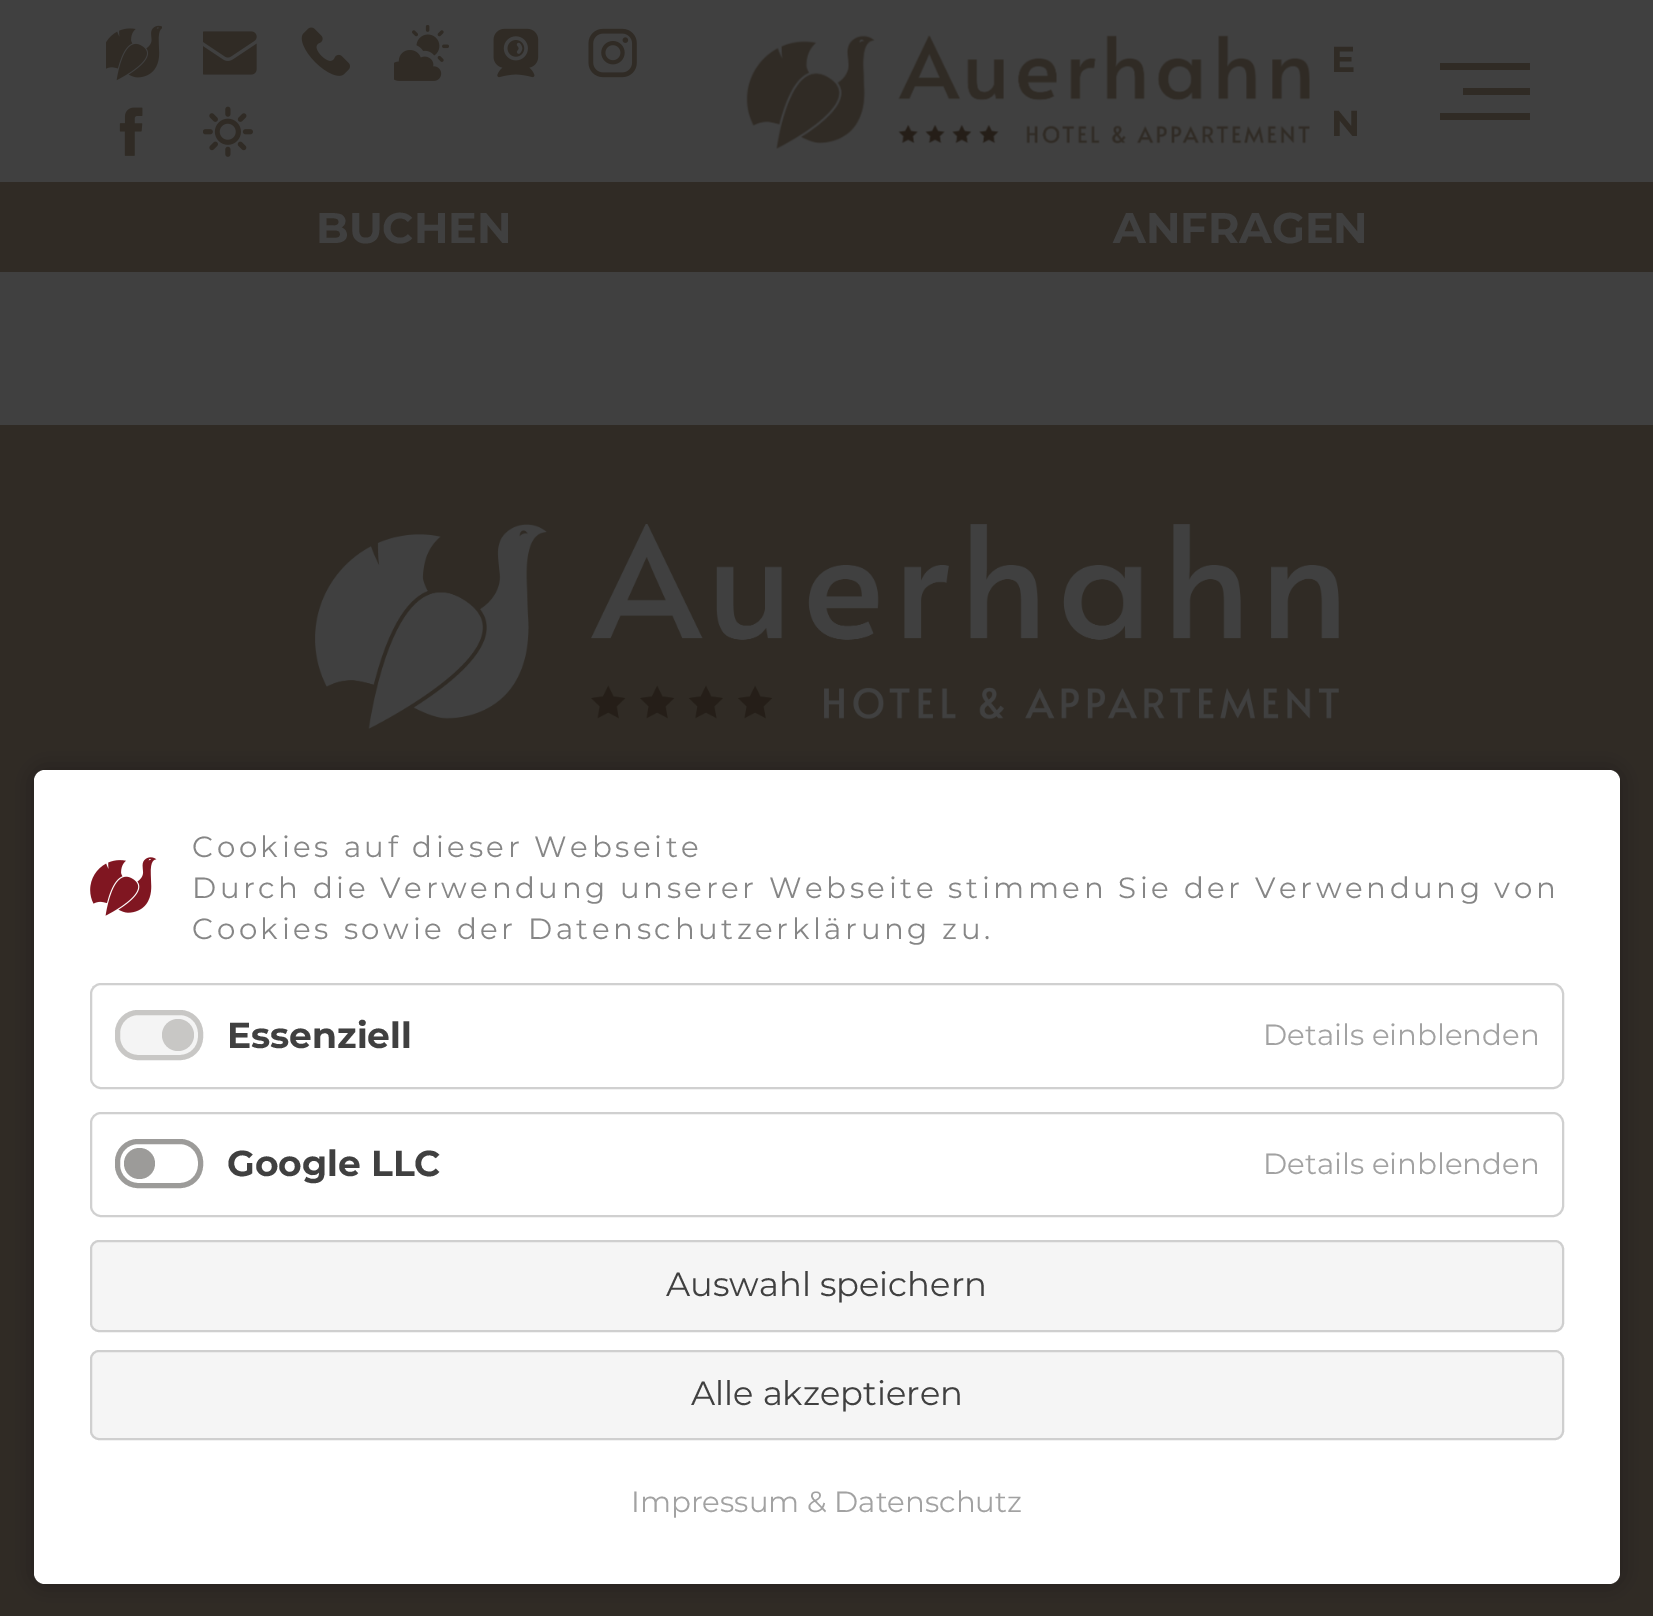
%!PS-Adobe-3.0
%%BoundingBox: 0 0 1653 1616
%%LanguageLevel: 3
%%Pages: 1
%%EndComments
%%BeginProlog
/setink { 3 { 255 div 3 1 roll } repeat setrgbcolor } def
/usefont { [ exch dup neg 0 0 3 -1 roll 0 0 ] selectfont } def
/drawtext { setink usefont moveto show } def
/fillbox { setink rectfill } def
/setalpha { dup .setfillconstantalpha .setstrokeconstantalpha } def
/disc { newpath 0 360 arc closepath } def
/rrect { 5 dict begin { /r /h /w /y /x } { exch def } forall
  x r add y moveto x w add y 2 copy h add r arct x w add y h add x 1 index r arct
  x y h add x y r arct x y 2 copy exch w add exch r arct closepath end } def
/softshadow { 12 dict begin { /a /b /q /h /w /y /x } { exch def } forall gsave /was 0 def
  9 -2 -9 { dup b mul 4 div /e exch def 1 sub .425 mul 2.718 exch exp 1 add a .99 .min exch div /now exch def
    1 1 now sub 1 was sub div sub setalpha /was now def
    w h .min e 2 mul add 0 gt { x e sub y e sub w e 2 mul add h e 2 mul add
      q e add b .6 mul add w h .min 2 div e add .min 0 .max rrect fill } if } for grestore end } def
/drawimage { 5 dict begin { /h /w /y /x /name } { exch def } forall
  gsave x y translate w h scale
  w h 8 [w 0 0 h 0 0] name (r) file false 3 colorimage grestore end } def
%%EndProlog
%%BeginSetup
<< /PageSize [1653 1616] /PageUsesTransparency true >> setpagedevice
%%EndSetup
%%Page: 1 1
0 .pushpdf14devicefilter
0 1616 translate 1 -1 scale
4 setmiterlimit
0 0 1653 1616 64 64 64 fillbox
(assets/img1.rgb) 106 25 56 56 drawimage
(assets/img2.rgb) 203 31 54 44 drawimage
(assets/img3.rgb) 301 27 49 49 drawimage
(assets/img4.rgb) 394 25 55 56 drawimage
(assets/img5.rgb) 493 28 46 50 drawimage
(assets/img6.rgb) 588 28 49 50 drawimage
(assets/img7.rgb) 119 107 24 49 drawimage
(assets/img8.rgb) 203 106 50 51 drawimage
(assets/img9.rgb) 746 35 564 114 drawimage
/Montserrat-Thin 36 usefont
48 43 37 setink
1331 72 moveto 5 0 (E) ashow
1331 136 moveto 5 0 (N) ashow
1440 63 90 7 48 43 37 fillbox
1463 88 67 7 48 43 37 fillbox
1440 113 90 7 48 43 37 fillbox
0 182 1653 90 48 43 37 fillbox
(BUCHEN) 316 243 /Montserrat-Thin 42.75 64 64 64 drawtext
(ANFRAGEN) 1113 243 /Montserrat-Thin 42.75 64 64 64 drawtext
0 425 1653 1191 48 43 37 fillbox
(assets/img10.rgb) 315 524 1024 205 drawimage
0 0 0 setink
34 770 1586 814 11 11 0.25 softshadow
255 255 255 setink
34 770 1586 814 11 rrect fill
(assets/img11.rgb) 90 857 67 59 drawimage
/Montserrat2-Thin 29.25 usefont
134 134 134 setink
192 857 moveto 3.6 0 (Cookies auf dieser Webseite) ashow
192 898 moveto 3.6 0 (Durch die Verwendung unserer Webseite stimmen Sie der Verwendung von) ashow
192 939 moveto 3.6 0 (Cookies sowie der Datenschutzerklärung zu.) ashow
208 208 208 setink
2 setlinewidth
91 984 1472 104 10 rrect stroke
213 213 213 setink
0.4 setlinewidth
92.5 986.5 moveto 93 987 lineto 94 986 lineto stroke
244 244 244 setink
117.5 1012.5 83 45 20.5 rrect gsave fill grestore
200 199 197 setink
5 setlinewidth
stroke
178 1035 16 disc fill
(Essenziell) 227 1048 /Montserrat-Thin 36 64 64 64 drawtext
(Details einblenden) 1263 1045 /Montserrat2-Thin 29.25 162 162 162 drawtext
208 208 208 setink
2 setlinewidth
91 1113 1472 103 10 rrect stroke
156 155 153 setink
5 setlinewidth
117.5 1141.5 83 44 20.5 rrect stroke
139.5 1163.5 15.5 disc fill
(Google LLC) 227 1176 /Montserrat-Thin 36 64 64 64 drawtext
(Details einblenden) 1263 1174 /Montserrat2-Thin 29.25 162 162 162 drawtext
245 245 245 setink
91 1241 1472 90 8 rrect gsave fill grestore
207 207 207 setink
2 setlinewidth
stroke
(Auswahl speichern) 666 1296 /Montserrat2-Thin 33.75 64 64 64 drawtext
245 245 245 setink
91 1351 1472 88 8 rrect gsave fill grestore
207 207 207 setink
stroke
(Alle akzeptieren) 691 1405 /Montserrat2-Thin 33.75 64 64 64 drawtext
(Impressum & Datenschutz) 631 1512 /Montserrat2-Thin 29.25 162 162 162 drawtext
.poppdf14devicefilter showpage
%%EOF
